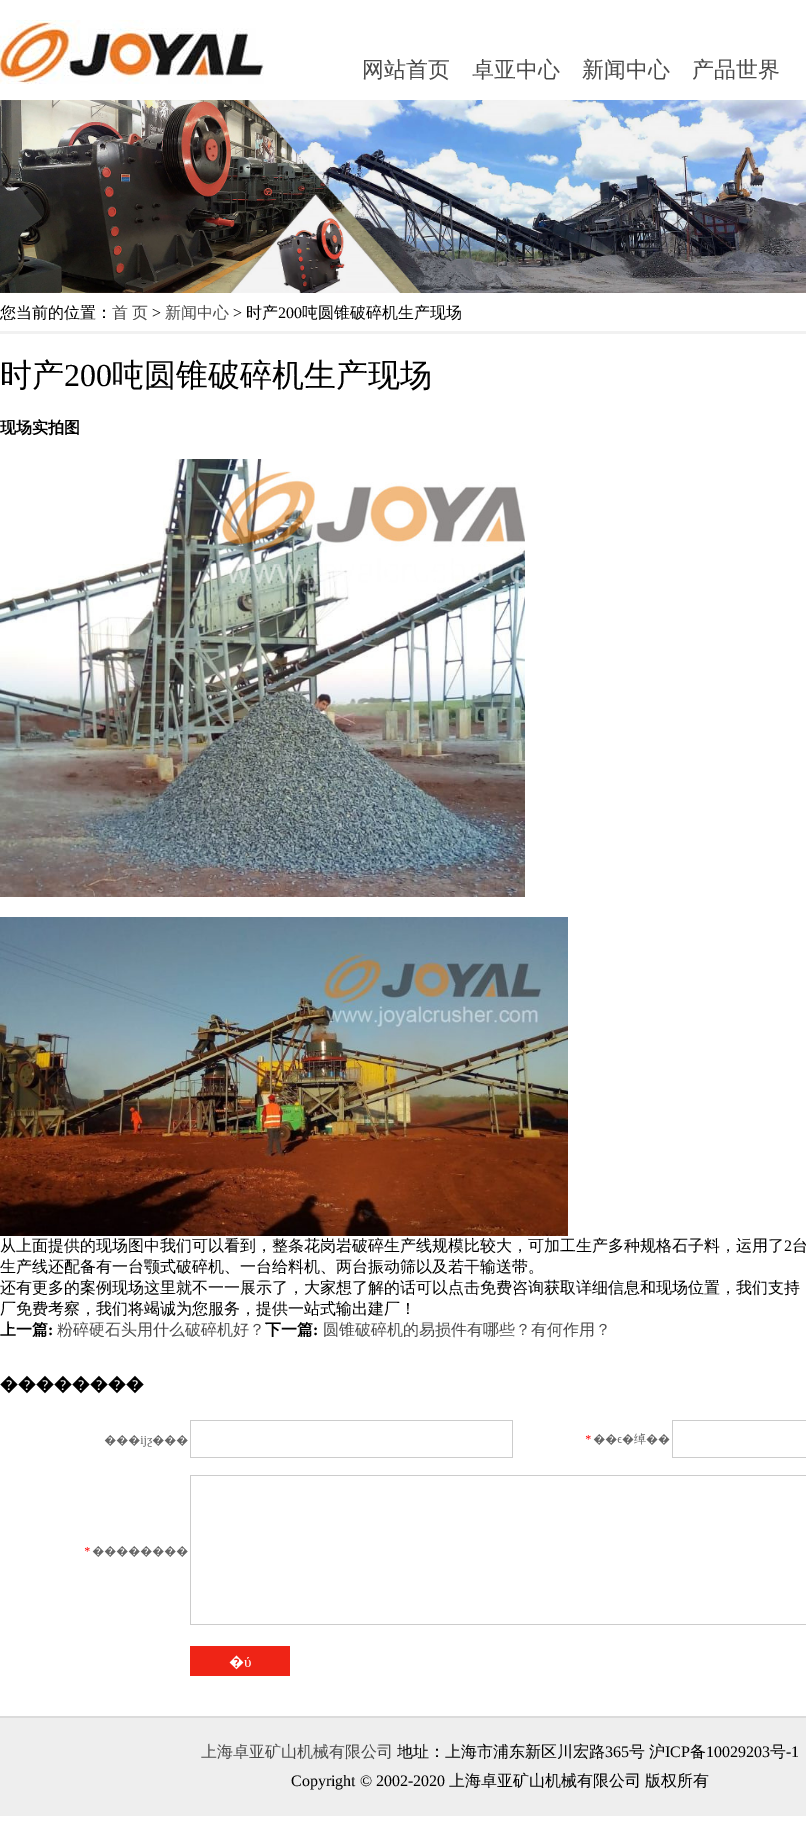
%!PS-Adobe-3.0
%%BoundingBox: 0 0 806 1837
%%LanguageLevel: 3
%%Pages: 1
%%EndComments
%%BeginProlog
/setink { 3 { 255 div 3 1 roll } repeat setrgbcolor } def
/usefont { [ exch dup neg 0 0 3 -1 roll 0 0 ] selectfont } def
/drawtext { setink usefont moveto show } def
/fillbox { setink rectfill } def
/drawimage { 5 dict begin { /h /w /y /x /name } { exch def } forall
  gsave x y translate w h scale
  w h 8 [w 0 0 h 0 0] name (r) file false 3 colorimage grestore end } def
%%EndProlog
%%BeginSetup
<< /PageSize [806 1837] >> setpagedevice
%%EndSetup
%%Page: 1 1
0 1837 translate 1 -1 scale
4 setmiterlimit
0 0 806 1837 255 255 255 fillbox
(assets/img1.rgb) 0 20 264 64 drawimage
(网站首页) 362 77 /WenQuanYiZenHei-Medium 22 74 74 74 drawtext
(卓亚中心) 472 77 /WenQuanYiZenHei-Medium 22 74 74 74 drawtext
(新闻中心) 582 77 /WenQuanYiZenHei-Medium 22 74 74 74 drawtext
(产品世界) 692 77 /WenQuanYiZenHei-Medium 22 74 74 74 drawtext
(assets/img2.rgb) 0 100 806 193 drawimage
0 331 806 3 241 241 241 fillbox
(您当前的位置：) 0 318 /WenQuanYiZenHei-Medium 16 0 0 0 drawtext
(首) 112 318 /WenQuanYiZenHei-Medium 16 74 74 74 drawtext
(页) 132 318 /WenQuanYiZenHei-Medium 16 74 74 74 drawtext
(>) 152 318 /LiberationSerif-Regular 16 0 0 0 drawtext
(新闻中心) 165 318 /WenQuanYiZenHei-Medium 16 74 74 74 drawtext
(>) 233 318 /LiberationSerif-Regular 16 0 0 0 drawtext
(时产) 246 318 /WenQuanYiZenHei-Medium 16 0 0 0 drawtext
(200) 278 318 /LiberationSerif-Regular 16 0 0 0 drawtext
(吨圆锥破碎机生产现场) 302 318 /WenQuanYiZenHei-Medium 16 0 0 0 drawtext
(时产) 0 386 /WenQuanYiZenHei-Medium 32 0 0 0 drawtext
(200) 64 386 /LiberationSerif-Regular 32 0 0 0 drawtext
(吨圆锥破碎机生产现场) 112 386 /WenQuanYiZenHei-Medium 32 0 0 0 drawtext
(现场实拍图) 0 433 /WenQuanYiZenHei-Bold 16 0 0 0 drawtext
(assets/img3.rgb) 0 459 525 438 drawimage
(assets/img4.rgb) 0 917 568 319 drawimage
(从上面提供的现场图中我们可以看到，整条花岗岩破碎生产线规模比较大，可加工生产多种规格石子料，运用了) 0 1251 /WenQuanYiZenHei-Medium 16 0 0 0 drawtext
(2) 784 1251 /LiberationSerif-Regular 16 0 0 0 drawtext
(台) 792 1251 /WenQuanYiZenHei-Medium 16 0 0 0 drawtext
(生产线还配备有一台颚式破碎机、一台给料机、两台振动筛以及若干输送带。) 0 1272 /WenQuanYiZenHei-Medium 16 0 0 0 drawtext
(还有更多的案例现场这里就不一一展示了，大家想了解的话可以点击免费咨询获取详细信息和现场位置，我们支持) 0 1293 /WenQuanYiZenHei-Medium 16 0 0 0 drawtext
(厂免费考察，我们将竭诚为您服务，提供一站式输出建厂！) 0 1314 /WenQuanYiZenHei-Medium 16 0 0 0 drawtext
(上一篇) 0 1335 /WenQuanYiZenHei-Bold 16 0 0 0 drawtext
(:) 48 1335 /LiberationSerif-Bold 16 0 0 0 drawtext
(粉碎硬石头用什么破碎机好？) 57 1335 /WenQuanYiZenHei-Medium 16 74 74 74 drawtext
(下一篇) 265 1335 /WenQuanYiZenHei-Bold 16 0 0 0 drawtext
(:) 313 1335 /LiberationSerif-Bold 16 0 0 0 drawtext
(圆锥破碎机的易损件有哪些？有何作用？) 323 1335 /WenQuanYiZenHei-Medium 16 74 74 74 drawtext
(assets/img5.rgb) 0 1375 806 301 drawimage
0 1718 806 98 238 238 238 fillbox
0 1716 806 2 219 219 219 fillbox
(上海卓亚矿山机械有限公司) 201 1757 /WenQuanYiZenHei-Medium 16 74 74 74 drawtext
(地址：上海市浦东新区川宏路) 397 1757 /WenQuanYiZenHei-Medium 16 0 0 0 drawtext
(365) 605 1757 /LiberationSerif-Regular 16 0 0 0 drawtext
(号) 629 1757 /WenQuanYiZenHei-Medium 16 0 0 0 drawtext
(沪) 649 1757 /WenQuanYiZenHei-Medium 16 0 0 0 drawtext
(ICP) 665 1757 /LiberationSerif-Regular 16 0 0 0 drawtext
(备) 690 1757 /WenQuanYiZenHei-Medium 16 0 0 0 drawtext
(10029203) 706 1757 /LiberationSerif-Regular 16 0 0 0 drawtext
(号) 770 1757 /WenQuanYiZenHei-Medium 16 0 0 0 drawtext
(-1) 786 1757 /LiberationSerif-Regular 16 0 0 0 drawtext
(Copyright © 2002-2020) 291 1786 /LiberationSerif-Regular 16 0 0 0 drawtext
(上海卓亚矿山机械有限公司) 449 1786 /WenQuanYiZenHei-Medium 16 0 0 0 drawtext
(版权所有) 645 1786 /WenQuanYiZenHei-Medium 16 0 0 0 drawtext
showpage
%%EOF
